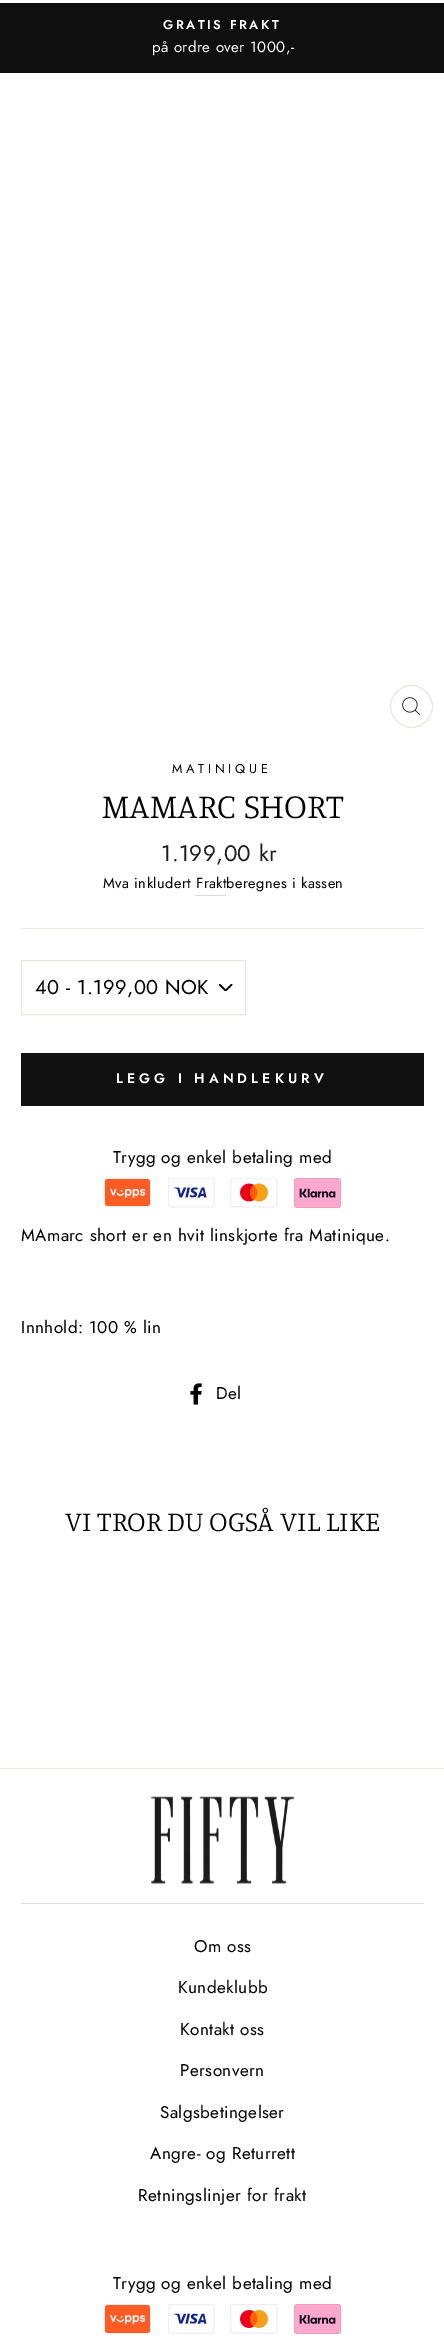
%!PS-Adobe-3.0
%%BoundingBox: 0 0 444 2342
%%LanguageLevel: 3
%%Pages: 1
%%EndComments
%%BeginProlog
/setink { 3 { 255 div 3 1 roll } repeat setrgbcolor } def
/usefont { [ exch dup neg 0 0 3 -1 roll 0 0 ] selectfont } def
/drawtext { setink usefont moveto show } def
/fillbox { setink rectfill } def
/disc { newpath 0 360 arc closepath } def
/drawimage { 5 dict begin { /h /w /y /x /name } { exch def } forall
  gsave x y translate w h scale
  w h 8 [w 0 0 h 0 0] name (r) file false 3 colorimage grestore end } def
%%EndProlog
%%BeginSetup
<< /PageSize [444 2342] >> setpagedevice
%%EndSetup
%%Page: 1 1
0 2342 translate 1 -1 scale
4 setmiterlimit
0 0 444 2342 255 255 255 fillbox
0 3 444 70 15 15 15 fillbox
/Jost-SemiBold 12.75 usefont
255 255 255 setink
163 29 moveto 2.5 0 (GRATIS FRAKT) ashow
/Jost-Regular 15 usefont
152 52 moveto 0.45 0 (på ordre over 1000,-) ashow
232 232 225 setink
411.5 706.5 21 disc stroke
(assets/img1.rgb) 402 697 18 18 drawimage
/Jost-Regular 12.75 usefont
0 0 0 setink
172 773 moveto 3.75 0 (MATINIQUE) ashow
(MAMARC SHORT) 102 818 /Manuale-Light 34.75 0 0 0 drawtext
/Jost-Regular 22.5 usefont
28 29 29 setink
161 861 moveto 0.45 0 (1.199,00 kr) ashow
/Jost-Regular 14.5 usefont
0 0 0 setink
103 888 moveto 0.45 0 (Mva inkludert Frakt) ashow
226 888 moveto 0.45 0 (beregnes i kassen) ashow
195 895 31 1 217 217 217 fillbox
21 928 403 1 232 232 225 fillbox
(assets/img2.rgb) 219 984 14 7 drawimage
21.5 960.5 224 54 rectstroke
/Jost-Regular 20 usefont
0 0 0 setink
35 994 moveto 0.5 0 (40 - 1.199,00 NOK) ashow
21 1053 403 53 17 17 17 fillbox
/Jost-SemiBold 13.75 usefont
255 255 255 setink
116 1083 moveto 4.1 0 (LEGG I HANDLEKURV) ashow
/Jost-Regular 17 usefont
0 0 0 setink
113 1163 moveto 0.45 0 (Trygg og enkel betaling med) ashow
(assets/img3.rgb) 104 1178 47 30 drawimage
(assets/img4.rgb) 168 1178 47 30 drawimage
(assets/img5.rgb) 230 1178 48 30 drawimage
(assets/img6.rgb) 294 1178 47 30 drawimage
21 1241 moveto 0.45 0 (MAmarc short er en hvit linskjorte fra Matinique.) ashow
21 1333 moveto 0.45 0 (Innhold: 100 % lin) ashow
(assets/img7.rgb) 190 1383 12 22 drawimage
216 1399 moveto 0.45 0 (Del) ashow
(VI TROR DU OGSÅ VIL LIKE) 65 1531 /Manuale-Light 28.25 0 0 0 drawtext
0 1768 444 1 232 232 225 fillbox
(assets/img8.rgb) 151 1796 143 88 drawimage
21 1903 403 1 224 224 224 fillbox
/Jost-Regular 17 usefont
0 0 0 setink
194 1952 moveto 0.45 0 (Om oss) ashow
178 1993 moveto 0.45 0 (Kundeklubb) ashow
180 2035 moveto 0.45 0 (Kontakt oss) ashow
180 2076 moveto 0.45 0 (Personvern) ashow
160 2118 moveto 0.45 0 (Salgsbetingelser) ashow
150 2159 moveto 0.45 0 (Angre- og Returrett) ashow
138 2201 moveto 0.45 0 (Retningslinjer for frakt) ashow
113 2289 moveto 0.45 0 (Trygg og enkel betaling med) ashow
(assets/img9.rgb) 104 2304 47 30 drawimage
(assets/img10.rgb) 168 2304 47 30 drawimage
(assets/img11.rgb) 230 2304 48 30 drawimage
(assets/img12.rgb) 294 2304 47 30 drawimage
showpage
%%EOF
